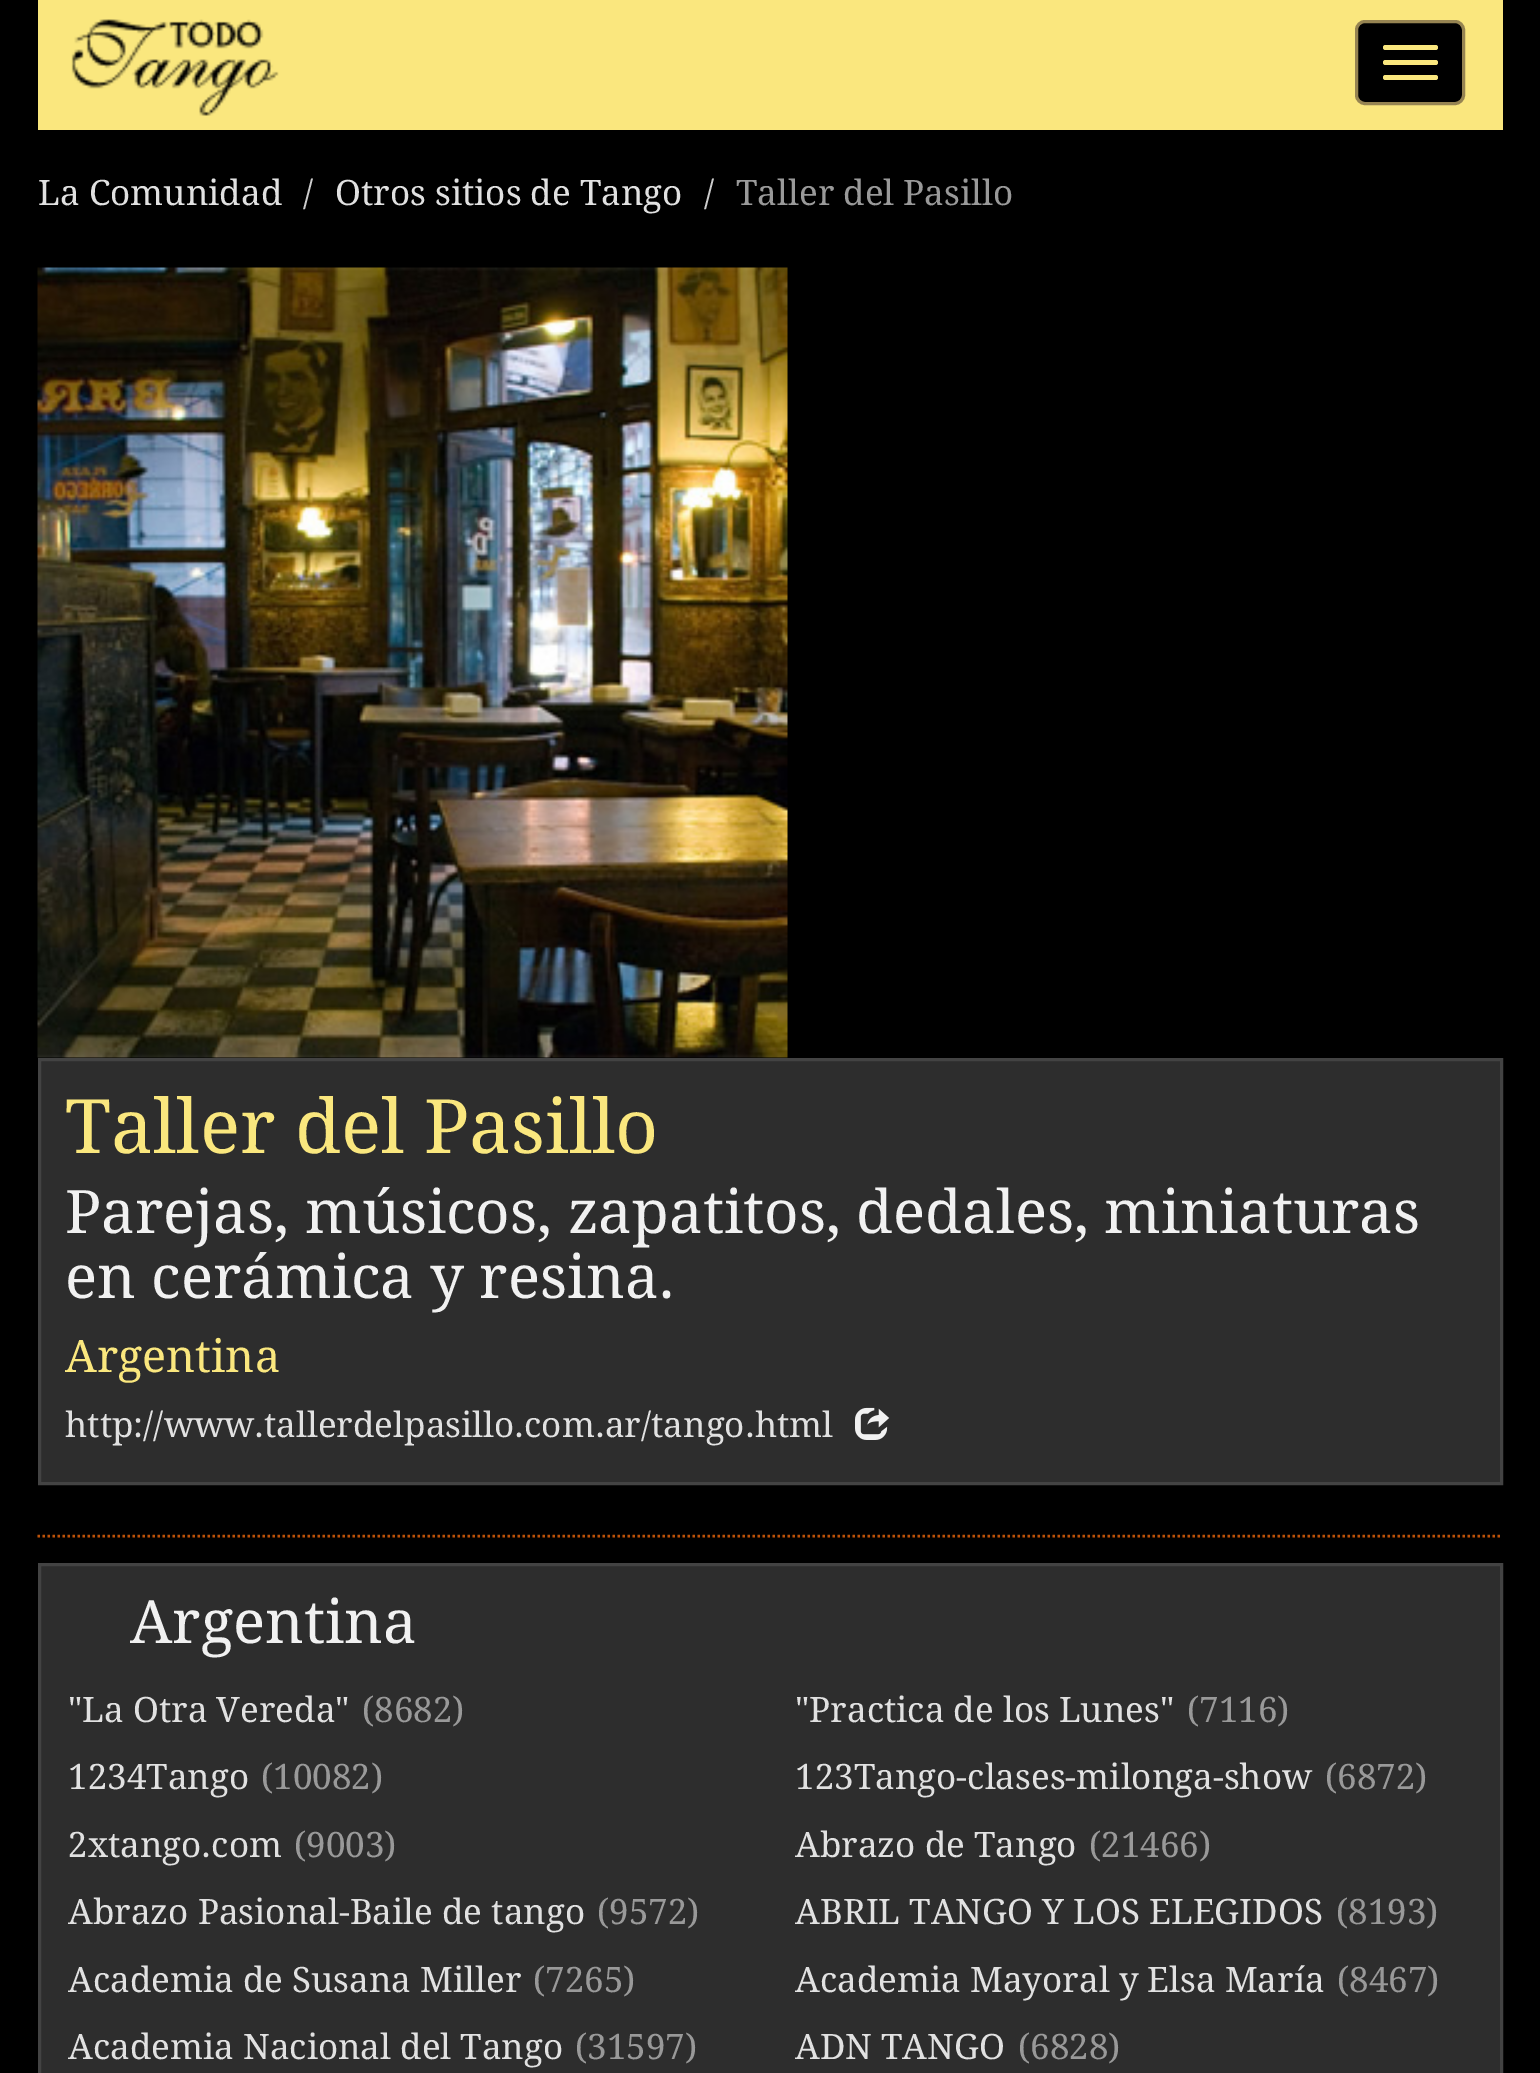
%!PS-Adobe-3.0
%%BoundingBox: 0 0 1540 2073
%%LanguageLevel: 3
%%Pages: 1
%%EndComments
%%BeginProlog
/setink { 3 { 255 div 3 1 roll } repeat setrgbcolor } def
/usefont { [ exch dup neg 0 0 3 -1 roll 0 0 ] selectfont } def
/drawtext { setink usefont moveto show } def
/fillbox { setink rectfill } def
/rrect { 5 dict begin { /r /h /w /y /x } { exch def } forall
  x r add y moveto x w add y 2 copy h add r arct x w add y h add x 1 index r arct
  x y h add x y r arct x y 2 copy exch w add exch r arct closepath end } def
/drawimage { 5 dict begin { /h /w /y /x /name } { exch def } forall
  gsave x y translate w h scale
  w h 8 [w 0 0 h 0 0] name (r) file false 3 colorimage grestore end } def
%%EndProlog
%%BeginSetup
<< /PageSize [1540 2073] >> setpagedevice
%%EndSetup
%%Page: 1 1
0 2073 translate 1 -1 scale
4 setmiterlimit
0 0 1540 2073 0 0 0 fillbox
38 0 1465 130 250 231 126 fillbox
(assets/img1.rgb) 71 19 208 97 drawimage
0 0 0 setink
1356.5 21.5 107 82 8.5 rrect gsave fill grestore
150 132 82 setink
3 setlinewidth
stroke
250 231 126 setink
1383 45 55 5 2.5 rrect fill
1383 60 55 5 2.5 rrect fill
1383 75 55 5 2.5 rrect fill
(La Comunidad) 38 205 /DroidSerif-Regular 35 225 225 225 drawtext
(/) 303 205 /DroidSerif-Regular 35 204 204 204 drawtext
(Otros sitios de Tango) 335 205 /DroidSerif-Regular 35 225 225 225 drawtext
(/) 704 205 /DroidSerif-Regular 35 204 204 204 drawtext
(Taller del Pasillo) 736 205 /DroidSerif-Regular 35 153 153 153 drawtext
(assets/img2.rgb) 37 267 751 791 drawimage
45 45 45 setink
39.5 1059.5 moveto 1501.5 1059.5 lineto 1501.5 1483.5 lineto 39.5 1483.5 lineto closepath gsave fill grestore
67 67 67 setink
stroke
(Taller del Pasillo) 65 1153 /DroidSerif-Regular 75 250 231 126 drawtext
(Parejas, músicos, zapatitos, dedales, miniaturas) 65 1233 /DroidSerif-Regular 60 241 241 241 drawtext
(en cerámica y resina.) 65 1298 /DroidSerif-Regular 60 241 241 241 drawtext
(Argentina) 65 1372 /DroidSerif-Regular 45 250 231 126 drawtext
(http://www.tallerdelpasillo.com.ar/tango.html) 65 1437 /DroidSerif-Regular 35 225 225 225 drawtext
(assets/img3.rgb) 855 1407 35 33 drawimage
189 82 8 setink
2.5 setlinewidth
[2.5 2.5] 0 setdash
37.5 1536 moveto 1502.5 1536 lineto stroke
45 45 45 setink
39.5 1564.5 moveto 1501.5 1564.5 lineto 1501.5 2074.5 lineto 39.5 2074.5 lineto closepath gsave fill grestore
67 67 67 setink
3 setlinewidth
[] 0 setdash
stroke
(Argentina) 130 1643 /DroidSerif-Regular 60 241 241 241 drawtext
("La Otra Vereda") 68 1722 /DroidSerif-Regular 35 225 225 225 drawtext
(\(8682\)) 362 1722 /DroidSerif-Regular 35 153 153 153 drawtext
("Practica de los Lunes") 795 1722 /DroidSerif-Regular 35 225 225 225 drawtext
(\(7116\)) 1187 1722 /DroidSerif-Regular 35 153 153 153 drawtext
(1234Tango) 68 1789 /DroidSerif-Regular 35 225 225 225 drawtext
(\(10082\)) 261 1789 /DroidSerif-Regular 35 153 153 153 drawtext
(123Tango-clases-milonga-show) 795 1789 /DroidSerif-Regular 35 225 225 225 drawtext
(\(6872\)) 1325 1789 /DroidSerif-Regular 35 153 153 153 drawtext
(2xtango.com) 68 1857 /DroidSerif-Regular 35 225 225 225 drawtext
(\(9003\)) 294 1857 /DroidSerif-Regular 35 153 153 153 drawtext
(Abrazo de Tango) 795 1857 /DroidSerif-Regular 35 225 225 225 drawtext
(\(21466\)) 1089 1857 /DroidSerif-Regular 35 153 153 153 drawtext
(Abrazo Pasional-Baile de tango) 68 1924 /DroidSerif-Regular 35 225 225 225 drawtext
(\(9572\)) 597 1924 /DroidSerif-Regular 35 153 153 153 drawtext
(ABRIL TANGO Y LOS ELEGIDOS) 795 1924 /DroidSerif-Regular 35 225 225 225 drawtext
(\(8193\)) 1336 1924 /DroidSerif-Regular 35 153 153 153 drawtext
(Academia de Susana Miller) 68 1992 /DroidSerif-Regular 35 225 225 225 drawtext
(\(7265\)) 533 1992 /DroidSerif-Regular 35 153 153 153 drawtext
(Academia Mayoral y Elsa María) 795 1992 /DroidSerif-Regular 35 225 225 225 drawtext
(\(8467\)) 1337 1992 /DroidSerif-Regular 35 153 153 153 drawtext
(Academia Nacional del Tango) 68 2059 /DroidSerif-Regular 35 225 225 225 drawtext
(\(31597\)) 575 2059 /DroidSerif-Regular 35 153 153 153 drawtext
(ADN TANGO) 795 2059 /DroidSerif-Regular 35 225 225 225 drawtext
(\(6828\)) 1018 2059 /DroidSerif-Regular 35 153 153 153 drawtext
showpage
%%EOF
